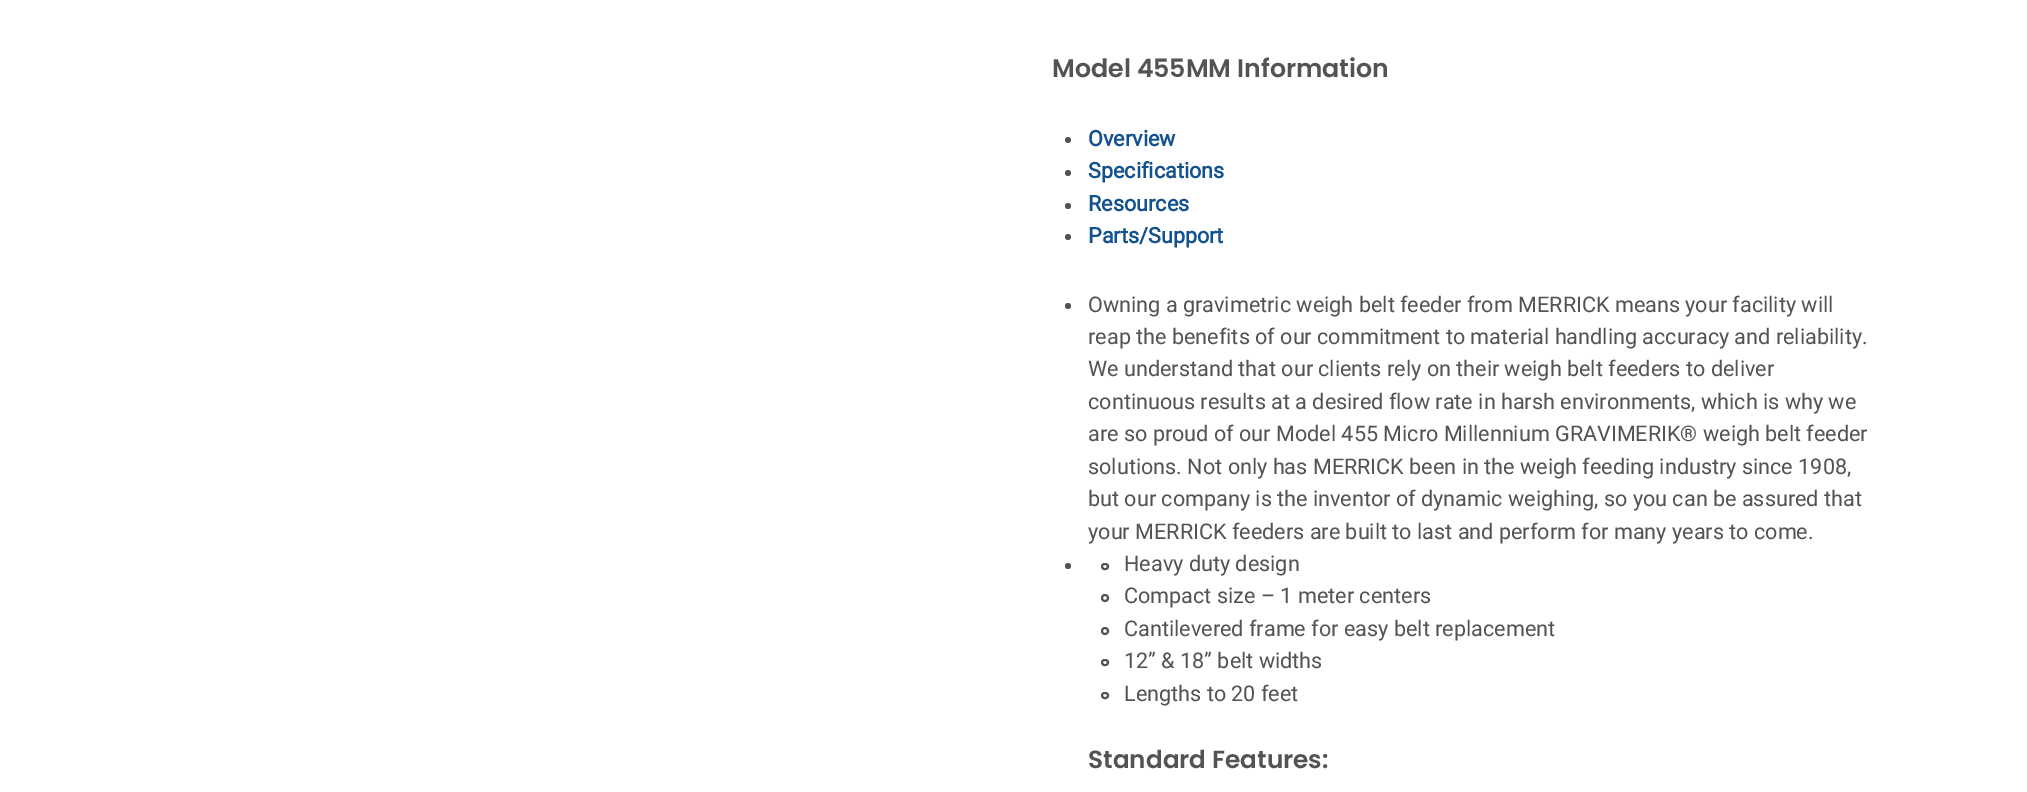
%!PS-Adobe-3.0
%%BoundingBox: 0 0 2027 792
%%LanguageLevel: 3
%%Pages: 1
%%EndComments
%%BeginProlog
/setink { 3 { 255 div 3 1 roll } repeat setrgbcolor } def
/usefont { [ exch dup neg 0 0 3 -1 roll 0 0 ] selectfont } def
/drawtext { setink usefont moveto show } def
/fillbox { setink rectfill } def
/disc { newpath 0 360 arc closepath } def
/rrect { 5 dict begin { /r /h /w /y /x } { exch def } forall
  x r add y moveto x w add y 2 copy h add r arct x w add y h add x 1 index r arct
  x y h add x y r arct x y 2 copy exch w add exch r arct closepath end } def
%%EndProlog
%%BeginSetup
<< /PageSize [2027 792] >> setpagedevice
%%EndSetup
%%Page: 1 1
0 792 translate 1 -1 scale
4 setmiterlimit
0 0 2027 792 255 255 255 fillbox
(Model 455MM Information) 1052 77 /Poppins-SemiBold 25.25 83 83 83 drawtext
1068 140 3 disc fill
(Overview) 1088 146 /Roboto-Bold 21.6 19 82 142 drawtext
83 83 83 setink
1068 173 3 disc fill
(Specifications) 1088 178 /Roboto-Bold 21.6 19 82 142 drawtext
83 83 83 setink
1068 206 3 disc fill
(Resources) 1088 211 /Roboto-Bold 21.6 19 82 142 drawtext
83 83 83 setink
1068 237 3 disc fill
(Parts/Support) 1088 243 /Roboto-Bold 21.6 19 82 142 drawtext
83 83 83 setink
1068 306 3 disc fill
(Owning a gravimetric weigh belt feeder from MERRICK means your facility will) 1088 312 /Roboto-Regular 21.6 83 83 83 drawtext
(reap the benefits of our commitment to material handling accuracy and reliability.) 1088 344 /Roboto-Regular 21.6 83 83 83 drawtext
(We understand that our clients rely on their weigh belt feeders to deliver) 1088 376 /Roboto-Regular 21.6 83 83 83 drawtext
(continuous results at a desired flow rate in harsh environments, which is why we) 1088 409 /Roboto-Regular 21.6 83 83 83 drawtext
(are so proud of our Model 455 Micro Millennium GRAVIMERIK® weigh belt feeder) 1088 441 /Roboto-Regular 21.6 83 83 83 drawtext
(solutions. Not only has MERRICK been in the weigh feeding industry since 1908,) 1088 474 /Roboto-Regular 21.6 83 83 83 drawtext
(but our company is the inventor of dynamic weighing, so you can be assured that) 1088 506 /Roboto-Regular 21.6 83 83 83 drawtext
(your MERRICK feeders are built to last and perform for many years to come.) 1088 539 /Roboto-Regular 21.6 83 83 83 drawtext
1068 566 3 disc fill
2 setlinewidth
1102 564 6 5 2.5 rrect stroke
(Heavy duty design) 1124 571 /Roboto-Regular 21.6 83 83 83 drawtext
1105 598 3 disc stroke
(Compact size – 1 meter centers) 1124 603 /Roboto-Regular 21.6 83 83 83 drawtext
1105 631 3 disc stroke
(Cantilevered frame for easy belt replacement) 1124 636 /Roboto-Regular 21.6 83 83 83 drawtext
1102 660 6 5 2.5 rrect stroke
(12” & 18” belt widths) 1124 668 /Roboto-Regular 21.6 83 83 83 drawtext
1102 693 6 5 2.5 rrect stroke
(Lengths to 20 feet) 1124 701 /Roboto-Regular 21.6 83 83 83 drawtext
(Standard Features:) 1088 768 /Poppins-SemiBold 24.75 83 83 83 drawtext
showpage
%%EOF
